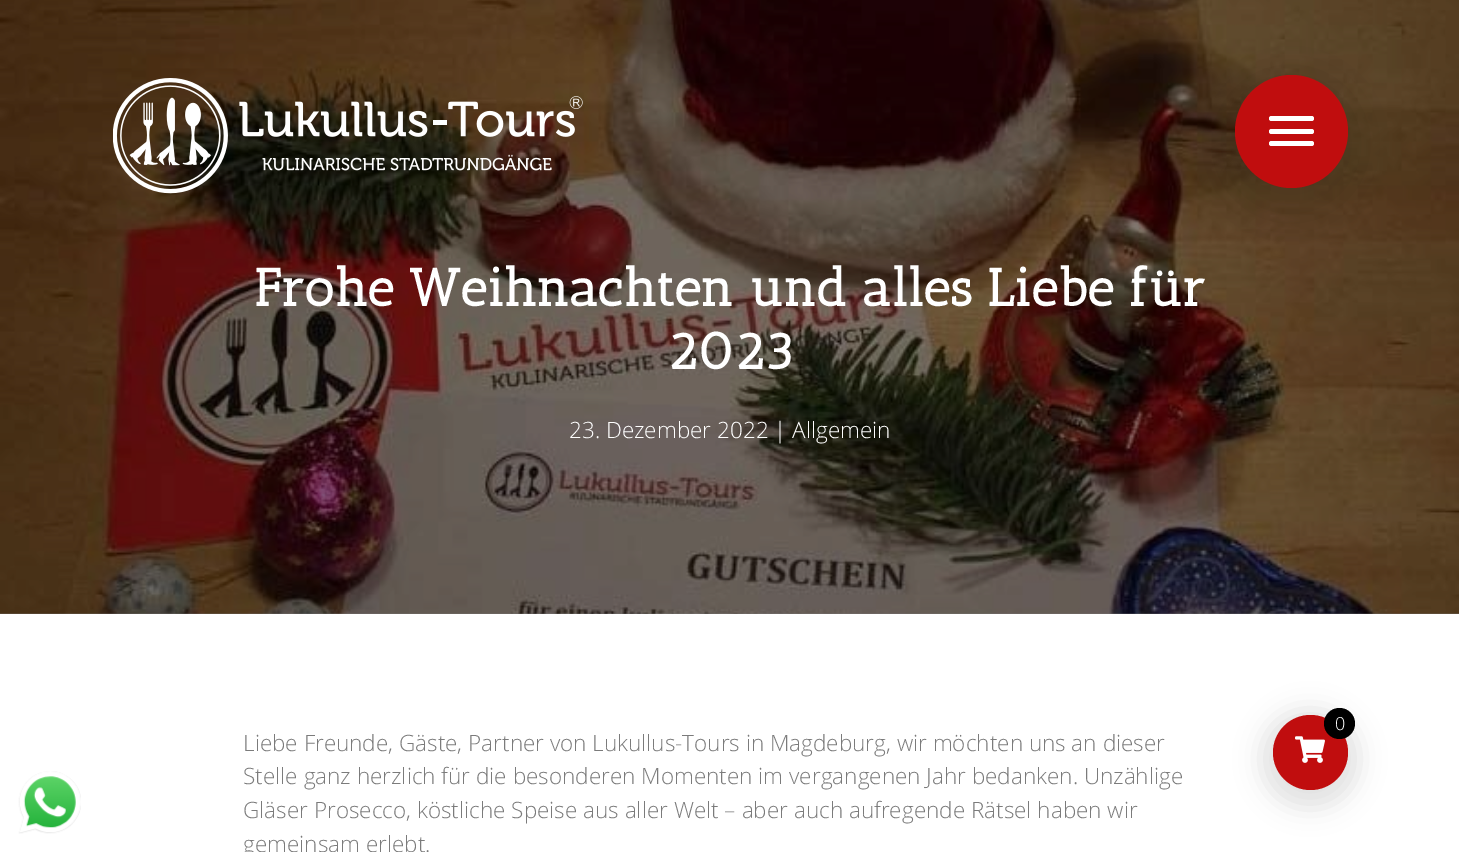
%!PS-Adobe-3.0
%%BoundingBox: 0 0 1459 852
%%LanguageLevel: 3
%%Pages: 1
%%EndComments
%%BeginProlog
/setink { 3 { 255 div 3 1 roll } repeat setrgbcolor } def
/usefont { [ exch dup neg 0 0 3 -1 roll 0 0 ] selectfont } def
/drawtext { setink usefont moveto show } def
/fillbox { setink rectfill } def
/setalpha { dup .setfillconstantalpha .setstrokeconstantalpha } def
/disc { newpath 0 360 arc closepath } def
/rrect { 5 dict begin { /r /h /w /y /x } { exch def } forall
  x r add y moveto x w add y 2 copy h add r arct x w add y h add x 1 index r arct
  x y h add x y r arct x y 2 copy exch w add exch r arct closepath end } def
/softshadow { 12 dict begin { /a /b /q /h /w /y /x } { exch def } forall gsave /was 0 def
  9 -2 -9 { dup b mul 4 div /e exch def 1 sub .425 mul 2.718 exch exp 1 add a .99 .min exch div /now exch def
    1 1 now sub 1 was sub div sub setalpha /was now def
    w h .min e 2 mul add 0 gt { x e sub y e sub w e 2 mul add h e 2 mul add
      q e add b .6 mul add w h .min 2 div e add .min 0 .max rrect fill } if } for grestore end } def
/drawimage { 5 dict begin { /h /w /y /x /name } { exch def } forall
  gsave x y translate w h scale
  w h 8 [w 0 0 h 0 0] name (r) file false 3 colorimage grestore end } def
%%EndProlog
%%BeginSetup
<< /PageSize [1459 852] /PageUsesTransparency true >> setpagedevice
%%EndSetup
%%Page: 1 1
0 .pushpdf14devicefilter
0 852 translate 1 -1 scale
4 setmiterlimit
0 0 1459 852 255 255 255 fillbox
(assets/img1.rgb) 18 771 63 63 drawimage
(assets/img3.rgb) 0 0 1459 614 drawimage
(assets/img2.rgb) 113 78 470 116 drawimage
0 0 0 setink
1216 69 150 150 75 19 0.11 softshadow
192 13 14 setink
1291.5 131.5 56.5 disc fill
255 255 255 setink
1269 116 45 5 2.5 rrect fill
1269 129 45 5 2.5 rrect fill
1269 141 45 5 2.5 rrect fill
(Frohe Weihnachten und alles Liebe für) 254 306 /AnticSlab-Bold 52.5 255 255 255 drawtext
(2023) 667 369 /AnticSlab-Bold 52.5 255 255 255 drawtext
(23. Dezember 2022 | Allgemein) 569 438 /OpenSans-Light 22.5 255 255 255 drawtext
(Liebe Freunde, Gäste, Partner von Lukullus-Tours in Magdeburg, wir möchten uns an dieser) 243 751 /OpenSans-Light 22.5 123 123 123 drawtext
(Stelle ganz herzlich für die besonderen Momenten im vergangenen Jahr bedanken. Unzählige) 243 784 /OpenSans-Light 22.5 123 123 123 drawtext
(Gläser Prosecco, köstliche Speise aus aller Welt – aber auch aufregende Rätsel haben wir) 243 818 /OpenSans-Light 22.5 123 123 123 drawtext
(gemeinsam erlebt.) 243 852 /OpenSans-Light 22.5 123 123 123 drawtext
0 0 0 setink
1260 709 100 100 50 12.5 0.11 softshadow
192 13 14 setink
1310.5 752.5 37.5 disc fill
(assets/img4.rgb) 1295 736 30 27 drawimage
0 0 0 setink
1339.5 723.5 15.5 disc fill
(0) 1335 730 /OpenSans-Light 18 255 255 255 drawtext
.poppdf14devicefilter showpage
%%EOF
